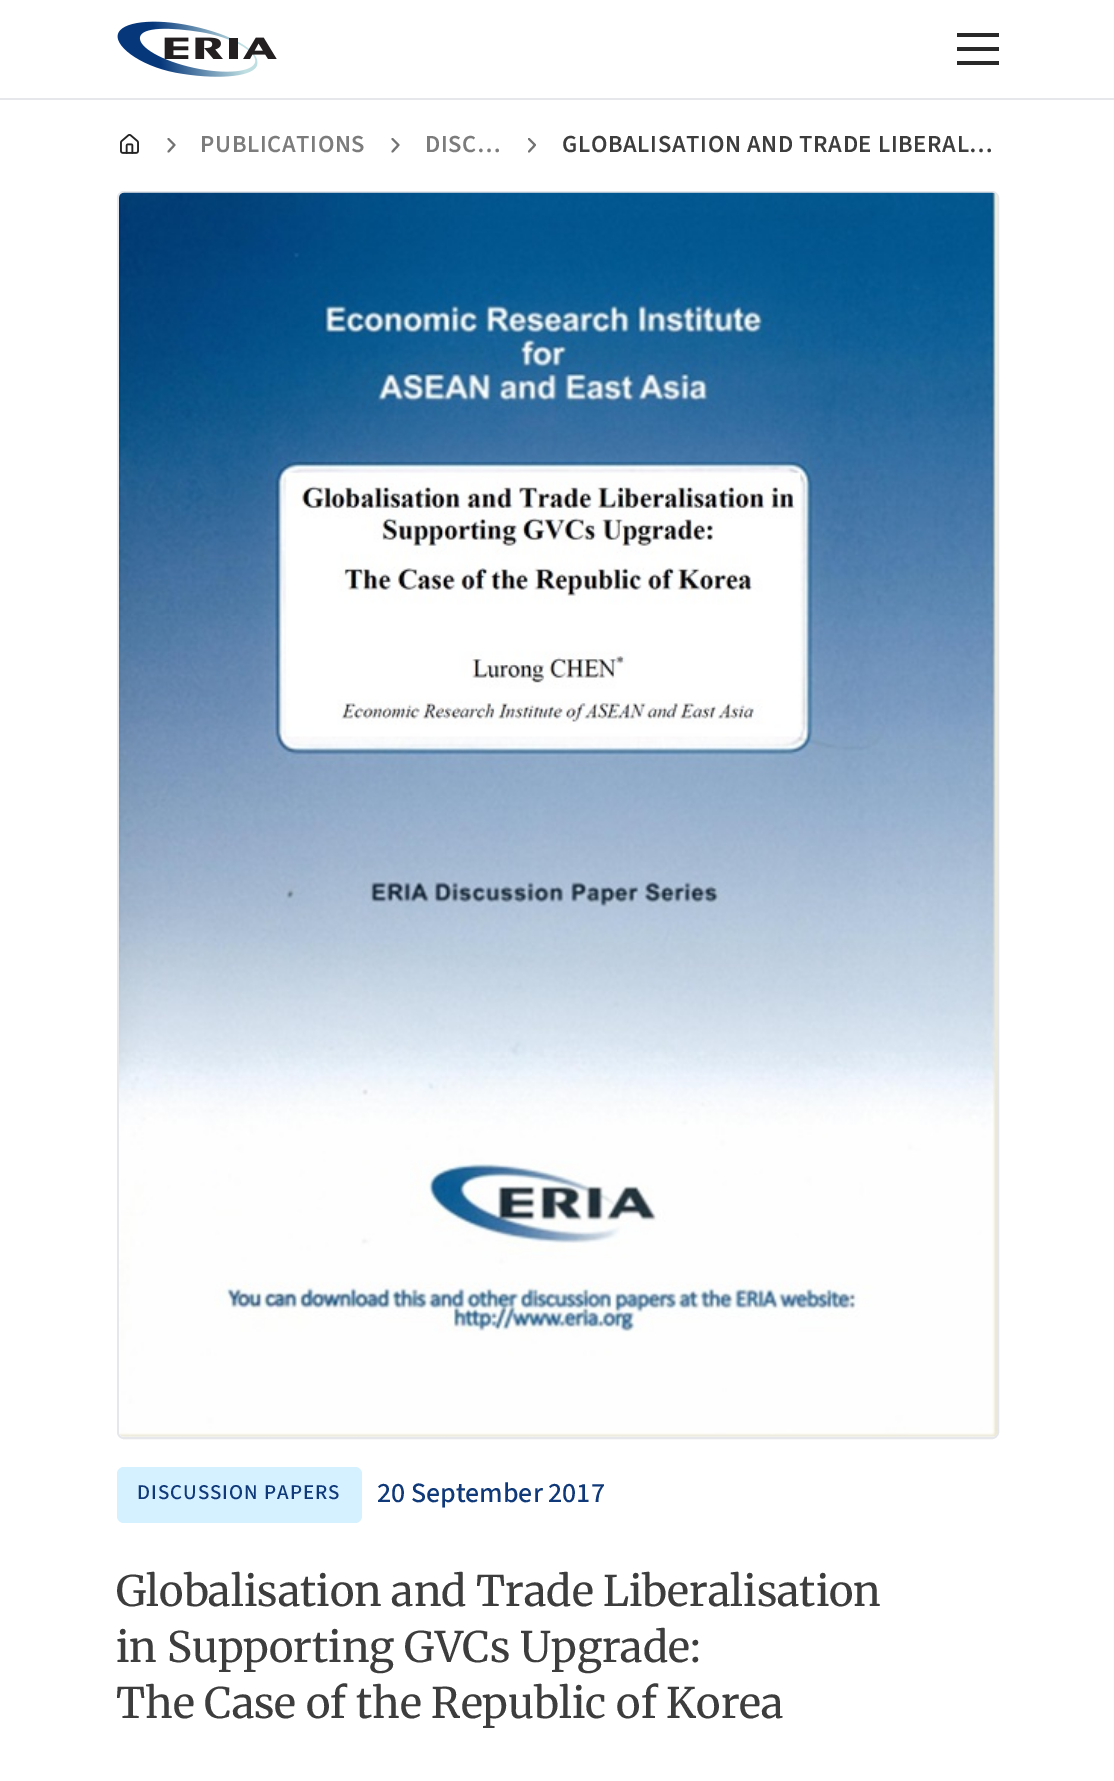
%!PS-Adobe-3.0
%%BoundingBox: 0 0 1114 1781
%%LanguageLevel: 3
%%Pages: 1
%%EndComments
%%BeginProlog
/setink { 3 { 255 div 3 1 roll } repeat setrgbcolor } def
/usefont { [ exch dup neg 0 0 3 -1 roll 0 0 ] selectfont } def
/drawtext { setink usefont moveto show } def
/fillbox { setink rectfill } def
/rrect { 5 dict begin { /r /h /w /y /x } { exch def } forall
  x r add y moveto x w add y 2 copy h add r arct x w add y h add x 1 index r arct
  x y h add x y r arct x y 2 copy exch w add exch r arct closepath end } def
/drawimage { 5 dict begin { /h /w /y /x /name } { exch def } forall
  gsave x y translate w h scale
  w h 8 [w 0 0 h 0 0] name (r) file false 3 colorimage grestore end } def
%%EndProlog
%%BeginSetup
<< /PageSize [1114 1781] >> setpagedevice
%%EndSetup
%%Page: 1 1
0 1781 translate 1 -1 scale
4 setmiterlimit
0 0 1114 1781 255 255 255 fillbox
0 98 1114 2 229 231 235 fillbox
(assets/img1.rgb) 117 21 160 56 drawimage
957 33 42 4 41 41 41 fillbox
957 47 42 4 41 41 41 fillbox
957 61 42 4 41 41 41 fillbox
(assets/img2.rgb) 120 134 19 20 drawimage
115 115 115 setink
2 setlinewidth
1 setlinecap
1 setlinejoin
168.5 151.5 moveto 174.5 145 lineto 168.5 139 lineto stroke
/SourceSans3-SemiBold 24.5 usefont
124 124 124 setink
200 152 moveto 0.6 0 (PUBLICATIONS) ashow
115 115 115 setink
392.5 151.5 moveto 398.5 145 lineto 392.5 139 lineto stroke
124 124 124 setink
425 152 moveto 0.6 0 (DISC…) ashow
115 115 115 setink
529 151.5 moveto 535 145 lineto 529 139 lineto stroke
61 61 61 setink
562 152 moveto 0.6 0 (GLOBALISATION AND TRADE LIBERAL…) ashow
229 231 235 setink
0 setlinecap
0 setlinejoin
118 192 880 1246 6 rrect stroke
(assets/img3.rgb) 119 192 879 1245 drawimage
213 240 255 setink
117 1467 245 56 7 rrect fill
/SourceSans3-Medium 21 usefont
15 57 121 setink
137 1499 moveto 1 0 (DISCUSSION PAPERS) ashow
(20 September 2017) 377 1502 /SourceSans3-Medium 28 15 57 121 drawtext
(Globalisation and Trade Liberalisation) 116 1606 /Merriweather-Regular 42 61 61 61 drawtext
(in Supporting GVCs Upgrade:) 116 1662 /Merriweather-Regular 42 61 61 61 drawtext
(The Case of the Republic of Korea) 116 1718 /Merriweather-Regular 42 61 61 61 drawtext
showpage
%%EOF
